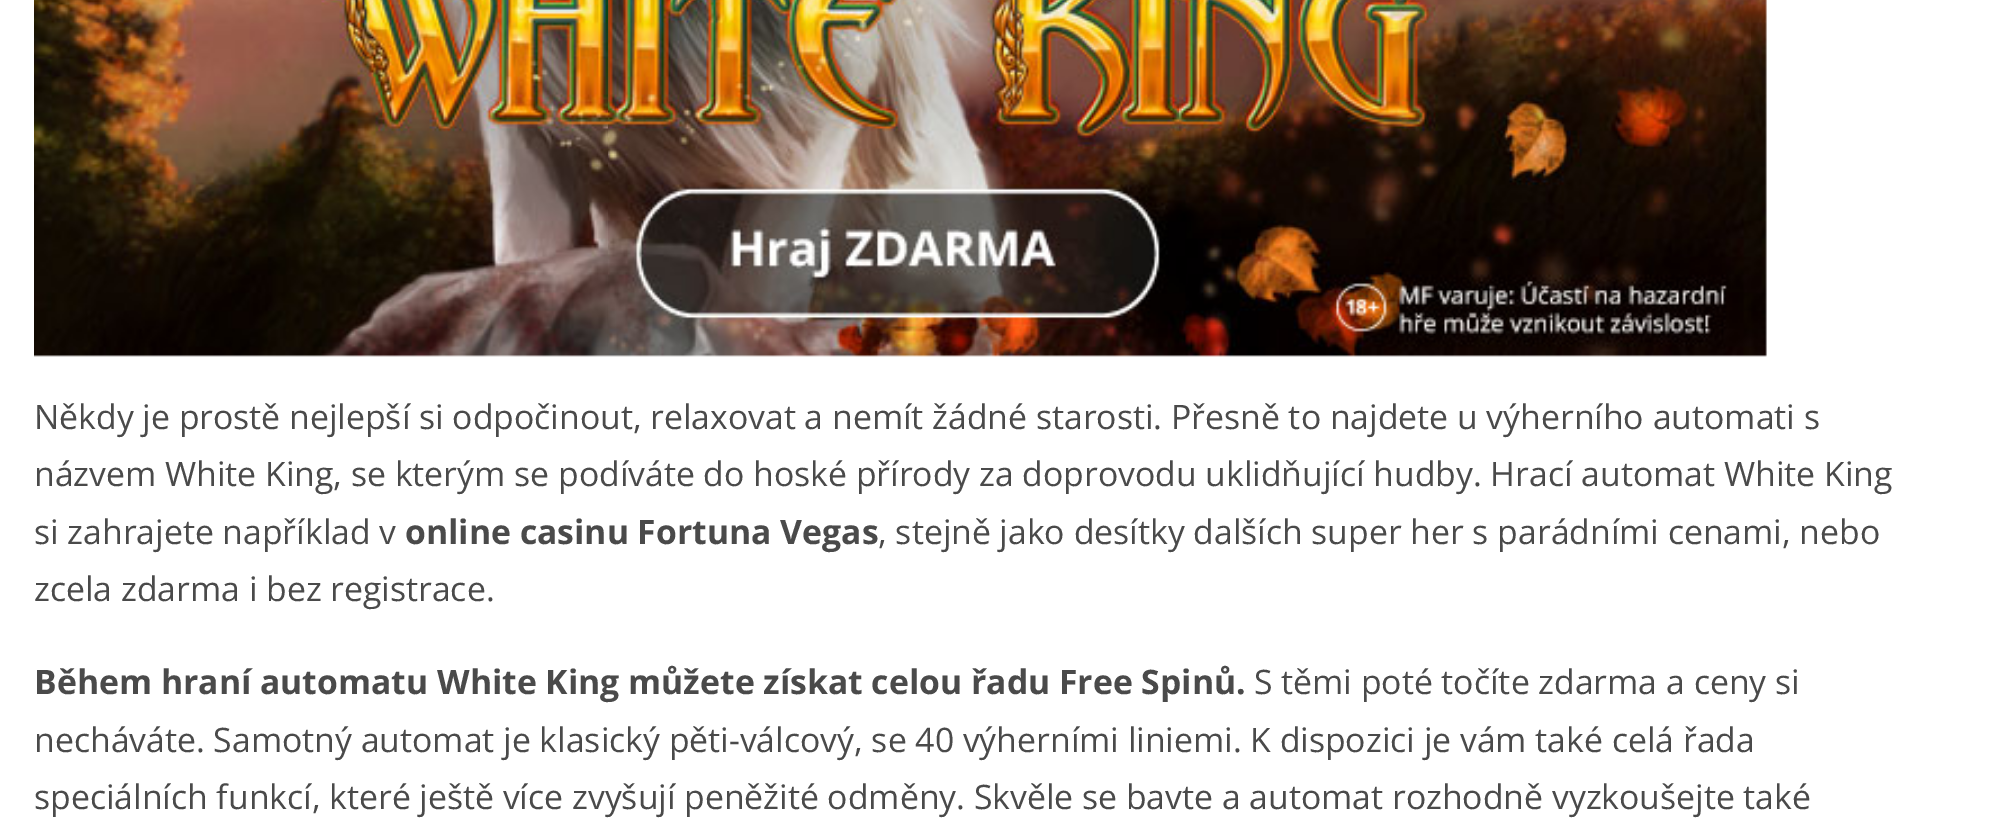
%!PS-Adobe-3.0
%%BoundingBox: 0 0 2001 832
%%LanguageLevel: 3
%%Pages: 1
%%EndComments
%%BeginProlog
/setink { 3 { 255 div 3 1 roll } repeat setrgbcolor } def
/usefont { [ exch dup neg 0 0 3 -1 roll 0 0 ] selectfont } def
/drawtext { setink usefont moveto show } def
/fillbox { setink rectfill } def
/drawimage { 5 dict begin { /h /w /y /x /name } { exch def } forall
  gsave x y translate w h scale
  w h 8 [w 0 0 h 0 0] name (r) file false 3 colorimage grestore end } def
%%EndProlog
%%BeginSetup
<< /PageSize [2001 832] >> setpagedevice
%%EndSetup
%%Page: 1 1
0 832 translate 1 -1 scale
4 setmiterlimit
0 0 2001 832 255 255 255 fillbox
(assets/img1.rgb) 34 0 1733 357 drawimage
(Někdy je prostě nejlepší si odpočinout, relaxovat a nemít žádné starosti. Přesně to najdete u výherního automati s) 34 429 /OpenSans-Regular 33.75 74 74 74 drawtext
(názvem White King, se kterým se podíváte do hoské přírody za doprovodu uklidňující hudby. Hrací automat White King) 34 486 /OpenSans-Regular 33.75 74 74 74 drawtext
(si zahrajete například v) 34 544 /OpenSans-Regular 33.75 74 74 74 drawtext
(online casinu Fortuna Vegas) 405 544 /OpenSans-Bold 33.75 74 74 74 drawtext
(, stejně jako desítky dalších super her s parádními cenami, nebo) 878 544 /OpenSans-Regular 33.75 74 74 74 drawtext
(zcela zdarma i bez registrace.) 34 601 /OpenSans-Regular 33.75 74 74 74 drawtext
(Během hraní automatu White King můžete získat celou řadu Free Spinů.) 34 694 /OpenSans-Bold 33.75 74 74 74 drawtext
(S těmi poté točíte zdarma a ceny si) 1254 694 /OpenSans-Regular 33.75 74 74 74 drawtext
(necháváte. Samotný automat je klasický pěti-válcový, se 40 výherními liniemi. K dispozici je vám také celá řada) 34 752 /OpenSans-Regular 33.75 74 74 74 drawtext
(speciálních funkcí, které ještě více zvyšují peněžité odměny. Skvěle se bavte a automat rozhodně vyzkoušejte také) 34 809 /OpenSans-Regular 33.75 74 74 74 drawtext
showpage
%%EOF
